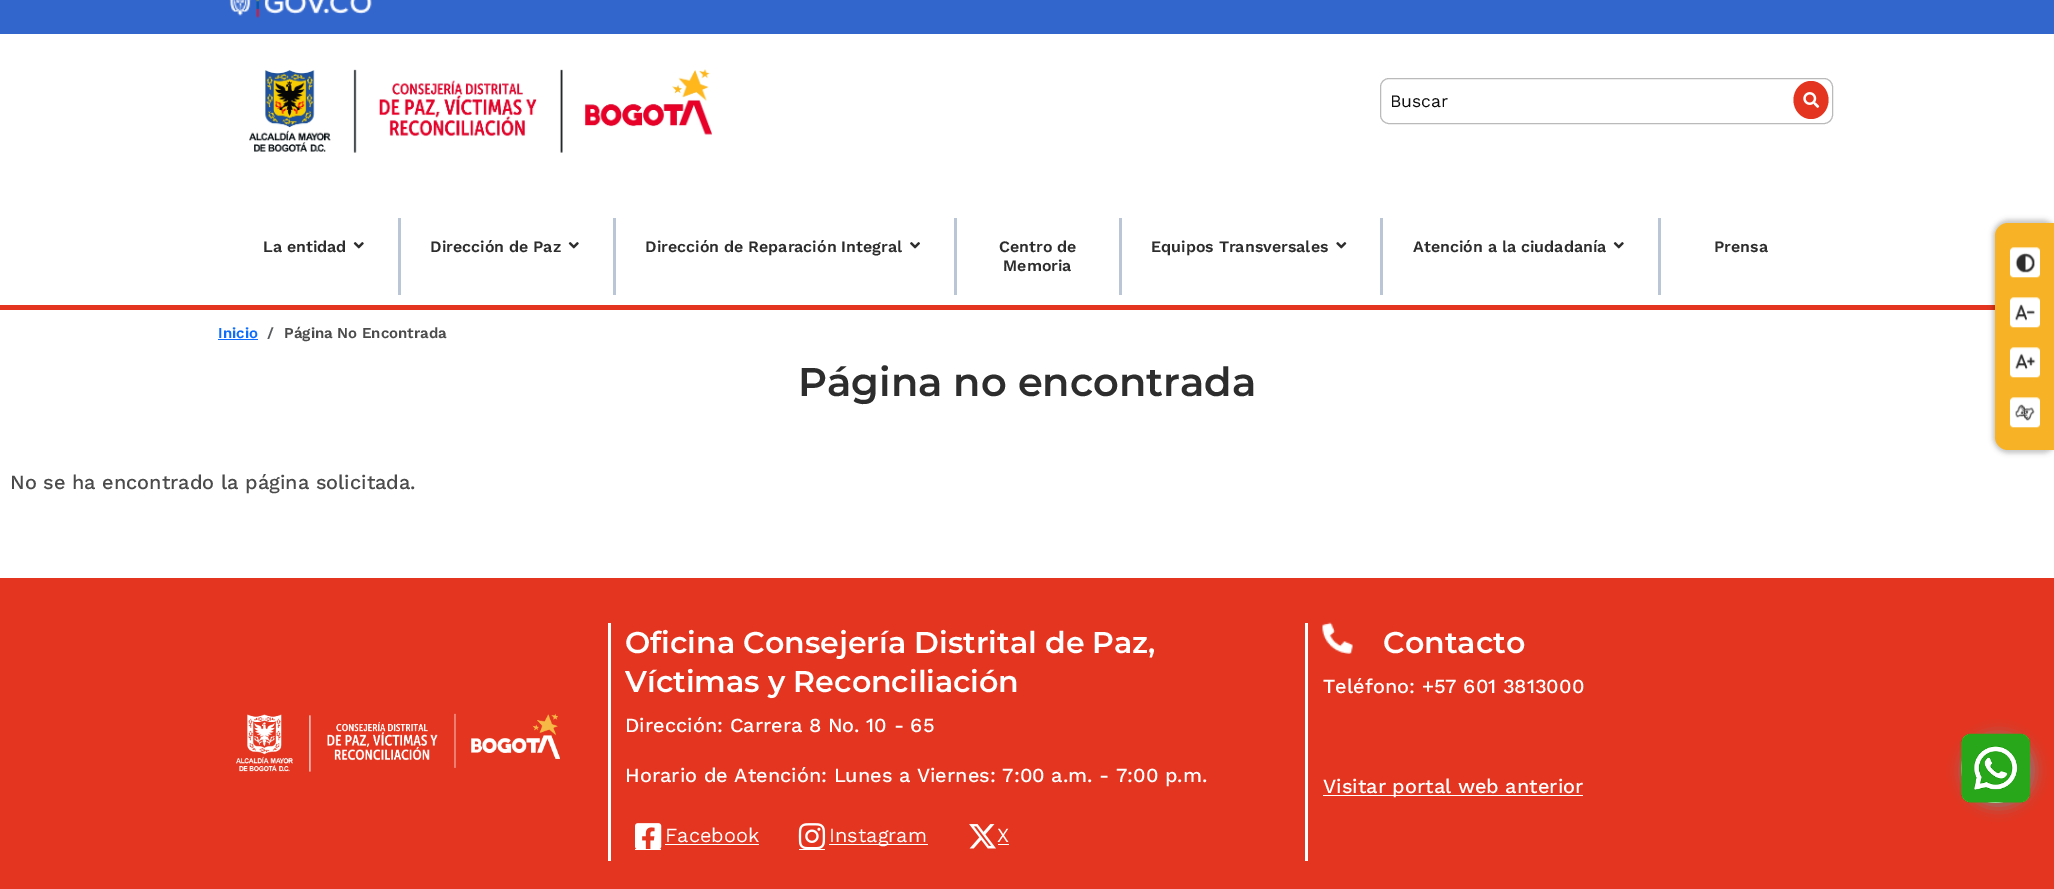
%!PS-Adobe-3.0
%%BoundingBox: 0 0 2054 889
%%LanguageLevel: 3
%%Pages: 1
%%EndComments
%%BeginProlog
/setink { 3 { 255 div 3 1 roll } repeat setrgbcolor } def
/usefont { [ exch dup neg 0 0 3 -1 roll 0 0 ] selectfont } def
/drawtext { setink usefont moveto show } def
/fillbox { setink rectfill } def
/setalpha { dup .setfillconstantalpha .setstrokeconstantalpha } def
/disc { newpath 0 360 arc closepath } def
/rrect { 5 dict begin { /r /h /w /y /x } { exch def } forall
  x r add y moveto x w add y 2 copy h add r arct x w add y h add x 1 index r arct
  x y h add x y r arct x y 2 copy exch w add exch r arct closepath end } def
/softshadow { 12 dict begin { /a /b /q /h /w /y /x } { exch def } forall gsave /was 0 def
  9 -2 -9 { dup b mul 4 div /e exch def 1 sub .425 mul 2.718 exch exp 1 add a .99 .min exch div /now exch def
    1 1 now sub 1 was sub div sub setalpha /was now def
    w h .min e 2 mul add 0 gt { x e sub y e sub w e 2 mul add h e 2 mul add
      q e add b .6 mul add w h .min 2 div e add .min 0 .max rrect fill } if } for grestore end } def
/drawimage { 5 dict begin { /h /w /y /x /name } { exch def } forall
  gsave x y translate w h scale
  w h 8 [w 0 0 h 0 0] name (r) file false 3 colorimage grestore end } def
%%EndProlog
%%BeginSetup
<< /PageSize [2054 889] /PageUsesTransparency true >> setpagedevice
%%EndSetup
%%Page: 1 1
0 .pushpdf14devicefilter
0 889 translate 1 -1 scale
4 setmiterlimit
0 0 2054 889 255 255 255 fillbox
0 0 2054 34 51 102 204 fillbox
(assets/img1.rgb) 229 0 143 18 drawimage
0 305 1995 5 227 53 31 fillbox
0 0 0 setink
1993 220 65 233 15 2.5 0.23 softshadow
247 179 37 setink
2008 223 moveto 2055 223 lineto 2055 450 lineto 2008 450 lineto 2001 450 1995 444 1995 437 curveto 1995 236 lineto 1995 229 2001 223 2008 223 curveto closepath fill
(assets/img2.rgb) 2010 247 30 31 drawimage
(assets/img3.rgb) 2010 297 30 31 drawimage
(assets/img4.rgb) 2010 347 30 31 drawimage
(assets/img5.rgb) 2010 397 30 31 drawimage
(assets/img6.rgb) 249 69 463 84 drawimage
186 186 186 setink
1380.5 78.5 452 45 8.5 rrect stroke
(Buscar) 1390 107 /WorkSans-Regular 17.5 15 15 15 drawtext
227 53 31 setink
1811 81 moveto 1820.5 81 1828.5 89.5 1828.5 100 curveto 1828.5 110.5 1820.5 119 1811 119 curveto 1801.5 119 1793.5 110.5 1793.5 100 curveto 1793.5 89.5 1801.5 81 1811 81 curveto closepath fill
(assets/img7.rgb) 1803 92 17 16 drawimage
398 218 3 77 186 198 213 fillbox
(La entidad) 263 252 /WorkSans-SemiBold 16 46 45 45 drawtext
(assets/img8.rgb) 353 242 11 7 drawimage
613 218 3 77 186 198 213 fillbox
(Dirección de Paz) 430 252 /WorkSans-SemiBold 16 46 45 45 drawtext
(assets/img8.rgb) 568 242 11 7 drawimage
954 218 3 77 186 198 213 fillbox
(Dirección de Reparación Integral) 645 252 /WorkSans-SemiBold 16 46 45 45 drawtext
(assets/img9.rgb) 910 242 10 7 drawimage
1119 218 3 77 186 198 213 fillbox
(Centro de) 999 252 /WorkSans-SemiBold 16 46 45 45 drawtext
(Memoria) 1003 271 /WorkSans-SemiBold 16 46 45 45 drawtext
1380 218 3 77 186 198 213 fillbox
(Equipos Transversales) 1151 252 /WorkSans-SemiBold 16 46 45 45 drawtext
(assets/img10.rgb) 1336 242 11 7 drawimage
1658 218 3 77 186 198 213 fillbox
(Atención a la ciudadanía) 1413 252 /WorkSans-SemiBold 16 46 45 45 drawtext
(assets/img8.rgb) 1613 242 11 7 drawimage
(Prensa) 1714 252 /WorkSans-SemiBold 16 46 45 45 drawtext
(Inicio) 218 338 /WorkSans-SemiBold 15 13 110 253 drawtext
218 339 40 1 13 110 253 fillbox
(/) 267 338 /WorkSans-SemiBold 15 89 92 95 drawtext
(Página No Encontrada) 284 338 /WorkSans-SemiBold 15 75 75 75 drawtext
(Página no encontrada) 798 396 /Montserrat-SemiBold 40 46 45 45 drawtext
(No se ha encontrado la página solicitada.) 10 489 /WorkSans-Medium 20 75 75 75 drawtext
0 578 2054 311 227 53 31 fillbox
(assets/img11.rgb) 236 713 324 59 drawimage
1305 623 3 238 255 255 255 fillbox
608 623 3 238 255 255 255 fillbox
(Oficina Consejería Distrital de Paz,) 625 653 /Montserrat-SemiBold 30 255 255 255 drawtext
(Víctimas y Reconciliación) 625 692 /Montserrat-SemiBold 30 255 255 255 drawtext
(Dirección: Carrera 8 No. 10 - 65) 625 732 /WorkSans-Medium 20 255 255 255 drawtext
(Horario de Atención: Lunes a Viernes: 7:00 a.m. - 7:00 p.m.) 625 782 /WorkSans-Medium 20 255 255 255 drawtext
(assets/img12.rgb) 635 823 27 26 drawimage
635 849 26 1 255 255 255 fillbox
(Facebook) 665 842 /WorkSans-Regular 20 255 255 255 drawtext
665 844 94 1 255 255 255 fillbox
(assets/img13.rgb) 798 823 28 26 drawimage
799 849 26 1 255 255 255 fillbox
829 844 99 1 255 255 255 fillbox
(Instagram) 829 842 /WorkSans-Regular 20 255 255 255 drawtext
(assets/img14.rgb) 969 824 27 25 drawimage
(X) 997 842 /WorkSans-Regular 20 255 255 255 drawtext
998 844 11 1 255 255 255 fillbox
(assets/img15.rgb) 1322 622 31 32 drawimage
(Contacto) 1383 653 /Montserrat-SemiBold 30 255 255 255 drawtext
(Teléfono: +57 601 3813000) 1323 693 /WorkSans-Medium 20 255 255 255 drawtext
1323 795 260 1 255 255 255 fillbox
(Visitar portal web anterior) 1323 793 /WorkSans-Medium 20 255 255 255 drawtext
128 128 128 setink
1964 736 69 69 34.5 7.5 1 softshadow
255 255 255 setink
1995.5 768.5 34.5 disc fill
(assets/img16.rgb) 1961 733 69 70 drawimage
.poppdf14devicefilter showpage
%%EOF
